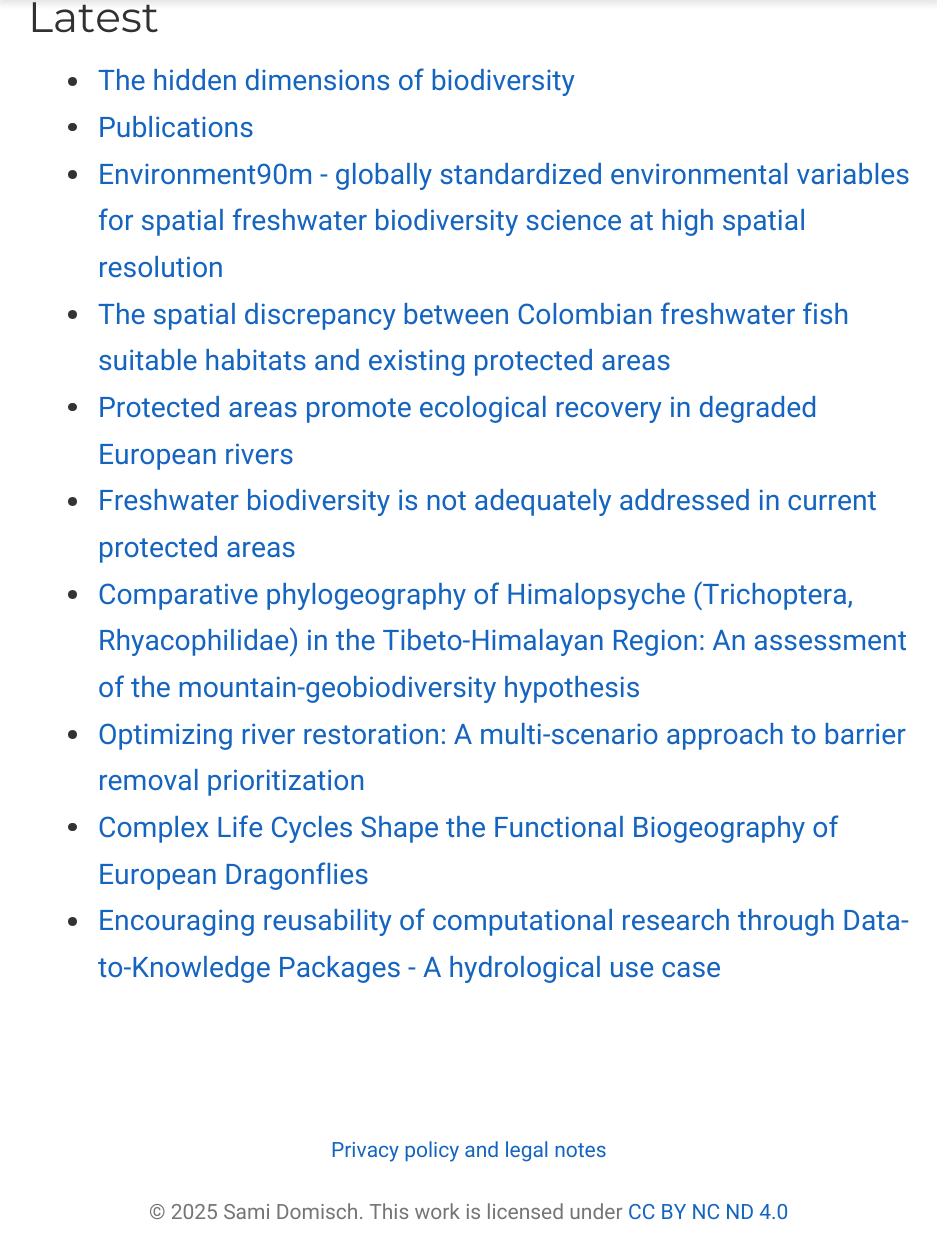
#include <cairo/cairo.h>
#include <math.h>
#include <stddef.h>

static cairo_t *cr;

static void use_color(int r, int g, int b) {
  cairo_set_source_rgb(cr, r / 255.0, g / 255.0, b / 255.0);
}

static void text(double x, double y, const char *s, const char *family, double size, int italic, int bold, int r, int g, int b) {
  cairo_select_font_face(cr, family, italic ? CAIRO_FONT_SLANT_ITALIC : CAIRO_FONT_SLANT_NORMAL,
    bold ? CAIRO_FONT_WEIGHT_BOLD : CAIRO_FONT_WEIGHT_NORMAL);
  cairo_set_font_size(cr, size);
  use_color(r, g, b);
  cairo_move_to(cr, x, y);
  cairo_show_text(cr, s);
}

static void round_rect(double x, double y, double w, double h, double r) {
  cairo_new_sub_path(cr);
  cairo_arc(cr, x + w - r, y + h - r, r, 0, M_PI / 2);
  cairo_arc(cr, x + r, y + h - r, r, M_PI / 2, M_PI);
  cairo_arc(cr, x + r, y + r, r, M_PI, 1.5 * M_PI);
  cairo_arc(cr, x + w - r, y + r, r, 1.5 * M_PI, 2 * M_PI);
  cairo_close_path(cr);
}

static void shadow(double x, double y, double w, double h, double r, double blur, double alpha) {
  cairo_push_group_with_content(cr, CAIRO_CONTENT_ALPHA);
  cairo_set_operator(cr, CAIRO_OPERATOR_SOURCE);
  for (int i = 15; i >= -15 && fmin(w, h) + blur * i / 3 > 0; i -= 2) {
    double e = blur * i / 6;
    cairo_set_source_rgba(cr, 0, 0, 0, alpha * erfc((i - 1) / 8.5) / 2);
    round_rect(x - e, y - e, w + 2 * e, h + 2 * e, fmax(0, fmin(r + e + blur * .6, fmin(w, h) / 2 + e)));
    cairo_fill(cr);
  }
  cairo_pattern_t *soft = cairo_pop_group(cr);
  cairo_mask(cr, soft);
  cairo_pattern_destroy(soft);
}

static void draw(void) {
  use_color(255, 255, 255);
  cairo_paint(cr);
  use_color(0, 0, 0);
  shadow(0, -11, 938, 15, 0, 3.5, 0.11);
  use_color(51, 51, 51);
  cairo_arc(cr, 72.5, 81.5, 4.5, 0, 2 * M_PI);
  cairo_fill(cr);
  round_rect(68, 123, 9, 8, 4);
  cairo_fill(cr);
  cairo_arc(cr, 72.5, 174.5, 4.5, 0, 2 * M_PI);
  cairo_fill(cr);
  cairo_arc(cr, 72.5, 314.5, 4.5, 0, 2 * M_PI);
  cairo_fill(cr);
  round_rect(68, 403, 9, 8, 4);
  cairo_fill(cr);
  cairo_arc(cr, 72.5, 501.5, 4.5, 0, 2 * M_PI);
  cairo_fill(cr);
  cairo_arc(cr, 72.5, 594.5, 4.5, 0, 2 * M_PI);
  cairo_fill(cr);
  cairo_arc(cr, 72.5, 734.5, 4.5, 0, 2 * M_PI);
  cairo_fill(cr);
  round_rect(68, 823, 9, 8, 4);
  cairo_fill(cr);
  cairo_arc(cr, 72.5, 921.5, 4.5, 0, 2 * M_PI);
  cairo_fill(cr);
  text(28, 32, "Latest", "Montserrat", 42.5, 0, 0, 49, 49, 49);
  text(98, 90, "The hidden dimensions of biodiversity", "Roboto", 28.3, 0, 0, 21, 101, 192);
  text(98, 137, "Publications", "Roboto", 28.3, 0, 0, 21, 101, 192);
  text(98, 184, "Environment90m - globally standardized environmental variables", "Roboto", 28.3, 0, 0, 21, 101, 192);
  text(98, 230, "for spatial freshwater biodiversity science at high spatial", "Roboto", 28.3, 0, 0, 21, 101, 192);
  text(98, 277, "resolution", "Roboto", 28.3, 0, 0, 21, 101, 192);
  text(98, 324, "The spatial discrepancy between Colombian freshwater fish", "Roboto", 28.3, 0, 0, 21, 101, 192);
  text(98, 370, "suitable habitats and existing protected areas", "Roboto", 28.3, 0, 0, 21, 101, 192);
  text(98, 417, "Protected areas promote ecological recovery in degraded", "Roboto", 28.3, 0, 0, 21, 101, 192);
  text(98, 464, "European rivers", "Roboto", 28.3, 0, 0, 21, 101, 192);
  text(98, 510, "Freshwater biodiversity is not adequately addressed in current", "Roboto", 28.3, 0, 0, 21, 101, 192);
  text(98, 557, "protected areas", "Roboto", 28.3, 0, 0, 21, 101, 192);
  text(98, 604, "Comparative phylogeography of Himalopsyche (Trichoptera,", "Roboto", 28.3, 0, 0, 21, 101, 192);
  text(98, 650, "Rhyacophilidae) in the Tibeto-Himalayan Region: An assessment", "Roboto", 28.3, 0, 0, 21, 101, 192);
  text(98, 697, "of the mountain-geobiodiversity hypothesis", "Roboto", 28.3, 0, 0, 21, 101, 192);
  text(98, 744, "Optimizing river restoration: A multi-scenario approach to barrier", "Roboto", 28.3, 0, 0, 21, 101, 192);
  text(98, 790, "removal prioritization", "Roboto", 28.3, 0, 0, 21, 101, 192);
  text(98, 837, "Complex Life Cycles Shape the Functional Biogeography of", "Roboto", 28.3, 0, 0, 21, 101, 192);
  text(98, 884, "European Dragonflies", "Roboto", 28.3, 0, 0, 21, 101, 192);
  text(98, 930, "Encouraging reusability of computational research through Data-", "Roboto", 28.3, 0, 0, 21, 101, 192);
  text(98, 977, "to-Knowledge Packages - A hydrological use case", "Roboto", 28.3, 0, 0, 21, 101, 192);
  text(331, 1157, "Privacy policy and legal notes", "Roboto", 21, 0, 0, 21, 101, 192);
  text(149, 1219, "© 2025 Sami Domisch. This work is licensed under", "Roboto", 21, 0, 0, 117, 117, 117);
  text(628, 1219, "CC BY NC ND 4.0", "Roboto", 21, 0, 0, 21, 101, 192);
}

int main(void) {
  cairo_surface_t *surface = cairo_image_surface_create(CAIRO_FORMAT_RGB24, 937, 1233);
  cr = cairo_create(surface);
  cairo_font_options_t *options = cairo_font_options_create();
  cairo_font_options_set_hint_metrics(options, CAIRO_HINT_METRICS_OFF);
  cairo_font_options_set_hint_style(options, CAIRO_HINT_STYLE_NONE);
  cairo_set_font_options(cr, options);
  cairo_set_miter_limit(cr, 4);
  draw();
  cairo_surface_write_to_png(surface, "out.png");
  cairo_font_options_destroy(options);
  cairo_destroy(cr);
  cairo_surface_destroy(surface);
  return 0;
}
